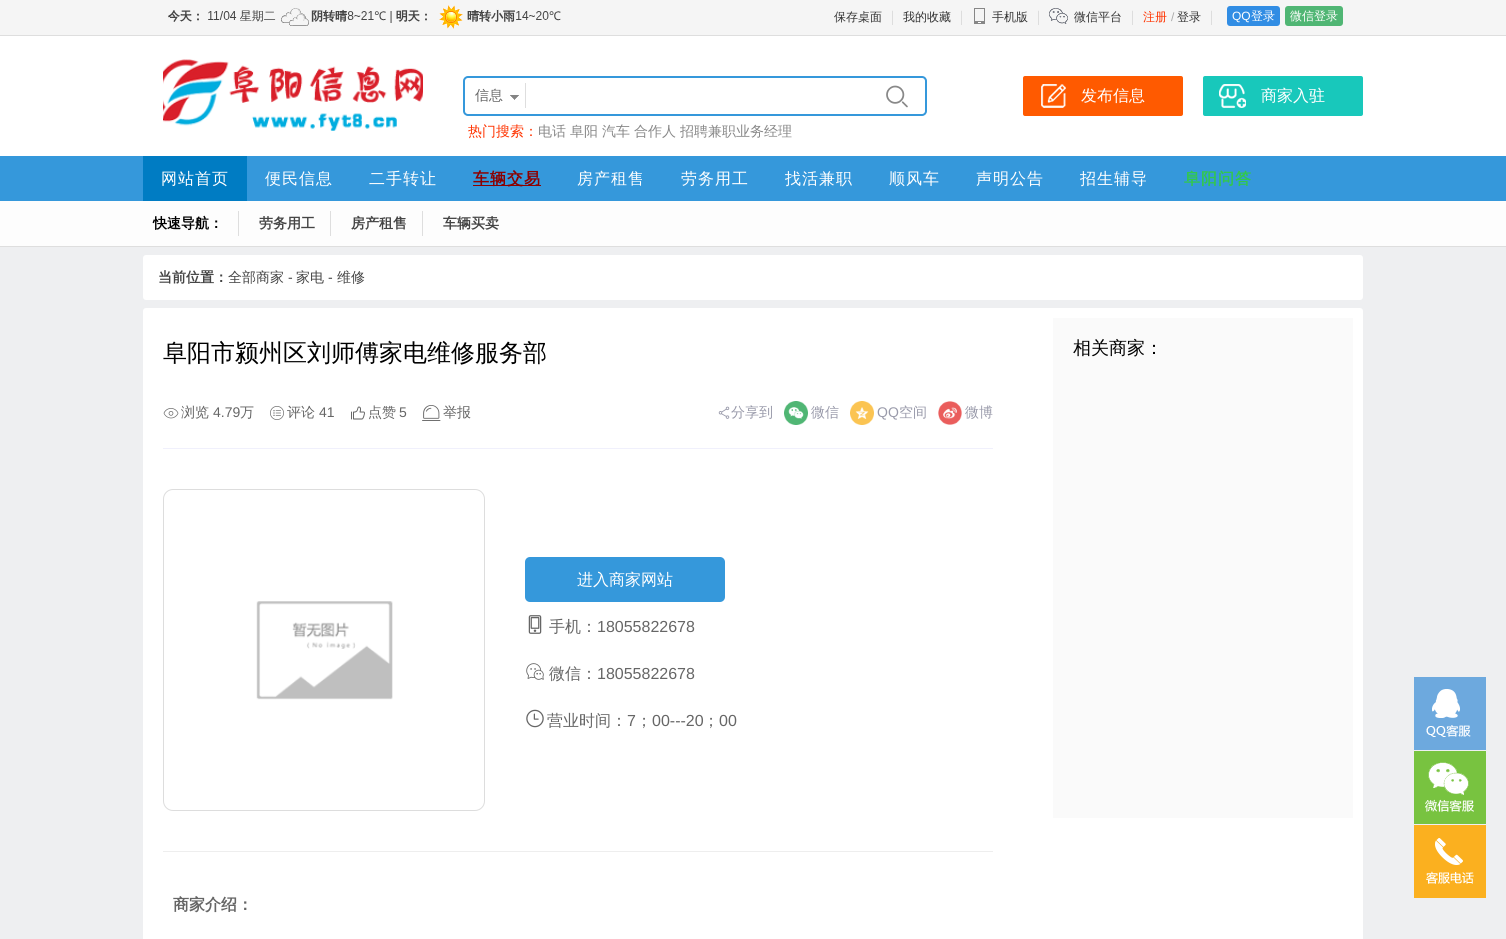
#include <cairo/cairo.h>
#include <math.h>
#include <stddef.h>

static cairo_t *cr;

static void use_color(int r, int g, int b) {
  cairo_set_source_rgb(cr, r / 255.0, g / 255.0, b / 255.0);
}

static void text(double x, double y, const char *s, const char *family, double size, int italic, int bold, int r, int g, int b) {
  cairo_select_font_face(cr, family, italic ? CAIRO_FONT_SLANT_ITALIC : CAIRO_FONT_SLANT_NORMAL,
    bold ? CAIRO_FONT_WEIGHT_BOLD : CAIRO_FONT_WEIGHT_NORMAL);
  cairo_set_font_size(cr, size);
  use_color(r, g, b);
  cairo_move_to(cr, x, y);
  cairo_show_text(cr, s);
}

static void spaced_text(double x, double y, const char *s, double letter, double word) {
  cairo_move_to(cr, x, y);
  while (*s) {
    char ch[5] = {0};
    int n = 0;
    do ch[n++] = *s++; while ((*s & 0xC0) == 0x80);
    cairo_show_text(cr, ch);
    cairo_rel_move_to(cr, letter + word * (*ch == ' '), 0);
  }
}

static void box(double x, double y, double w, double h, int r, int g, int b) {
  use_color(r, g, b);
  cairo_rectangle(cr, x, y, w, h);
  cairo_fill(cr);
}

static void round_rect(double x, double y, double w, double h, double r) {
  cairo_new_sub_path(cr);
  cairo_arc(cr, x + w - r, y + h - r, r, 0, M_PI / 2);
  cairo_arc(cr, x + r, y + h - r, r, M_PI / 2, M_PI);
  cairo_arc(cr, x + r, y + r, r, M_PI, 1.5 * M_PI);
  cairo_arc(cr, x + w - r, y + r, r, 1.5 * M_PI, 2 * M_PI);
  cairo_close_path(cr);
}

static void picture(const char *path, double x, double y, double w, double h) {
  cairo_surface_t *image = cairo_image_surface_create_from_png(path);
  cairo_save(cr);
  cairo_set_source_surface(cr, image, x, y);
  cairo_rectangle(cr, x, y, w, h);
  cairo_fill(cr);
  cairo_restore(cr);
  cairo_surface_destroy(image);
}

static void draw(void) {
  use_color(238, 239, 241);
  cairo_paint(cr);
  box(0, 0, 1506, 35, 245, 245, 245);
  box(0, 35, 1506, 1, 222, 222, 222);
  picture("img_01.png", 168, 5, 393, 24);
  box(892, 10, 1, 15, 221, 221, 221);
  box(892, 10, 1, 1, 239, 239, 239);
  box(961, 10, 1, 15, 221, 221, 221);
  box(961, 10, 1, 1, 239, 239, 239);
  picture("img_02.png", 974, 8, 11, 16);
  box(1038, 10, 1, 15, 221, 221, 221);
  box(1038, 10, 1, 1, 239, 239, 239);
  picture("img_03.png", 1049, 8, 19, 16);
  box(1132, 10, 1, 15, 221, 221, 221);
  box(1132, 10, 1, 1, 239, 239, 239);
  box(1211, 10, 1, 15, 221, 221, 221);
  box(1211, 10, 1, 1, 239, 239, 239);
  use_color(49, 141, 228);
  round_rect(1227, 6, 53, 20, 3);
  cairo_fill(cr);
  use_color(80, 182, 116);
  round_rect(1285, 6, 58, 20, 3);
  cairo_fill(cr);
  box(0, 36, 1506, 120, 255, 255, 255);
  picture("img_04.png", 163, 59, 260, 72);
  round_rect(464, 77, 462, 38, 4);
  use_color(53, 152, 219);
  cairo_stroke(cr);
  picture("img_05.png", 510, 95, 9, 5);
  box(525, 83, 1, 25, 222, 222, 222);
  picture("img_06.png", 886, 85, 22, 23);
  use_color(255, 90, 0);
  round_rect(1023, 76, 160, 40, 2);
  cairo_fill(cr);
  picture("img_07.png", 1041, 84, 25, 24);
  use_color(24, 200, 187);
  round_rect(1203, 76, 160, 40, 2);
  cairo_fill(cr);
  picture("img_08.png", 1219, 84, 27, 24);
  box(0, 156, 1506, 45, 53, 152, 219);
  box(143, 156, 104, 45, 0, 124, 195);
  box(473, 185, 68, 1, 140, 0, 0);
  box(0, 201, 1506, 45, 253, 253, 253);
  box(0, 246, 1506, 1, 222, 222, 222);
  box(238, 211, 1, 25, 222, 222, 222);
  box(330, 211, 1, 25, 222, 222, 222);
  box(422, 211, 1, 25, 222, 222, 222);
  use_color(255, 255, 255);
  round_rect(143, 255, 1220, 45, 3);
  cairo_fill(cr);
  round_rect(143, 308, 1220, 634, 3);
  cairo_fill(cr);
  box(163, 448, 830, 1, 240, 240, 252);
  picture("img_09.png", 163, 408, 16, 11);
  picture("img_10.png", 270, 406, 14, 14);
  picture("img_11.png", 351, 406, 14, 14);
  picture("img_12.png", 422, 405, 19, 16);
  picture("img_13.png", 718, 406, 12, 13);
  picture("img_14.png", 784, 401, 24, 24);
  picture("img_15.png", 850, 401, 24, 24);
  picture("img_16.png", 938, 401, 24, 24);
  box(163, 851, 830, 1, 238, 238, 238);
  round_rect(163.5, 489.5, 321, 321, 9.5);
  use_color(221, 221, 221);
  cairo_set_line_width(cr, 1);
  cairo_stroke(cr);
  picture("img_17.png", 256, 601, 137, 99);
  use_color(53, 152, 219);
  round_rect(525, 557, 200, 45, 5);
  cairo_fill(cr);
  picture("img_18.png", 528, 615, 14, 19);
  picture("img_19.png", 526, 663, 18, 17);
  picture("img_20.png", 526, 709, 18, 19);
  box(1053, 318, 300, 500, 250, 250, 250);
  box(1414, 677, 72, 73, 109, 169, 222);
  picture("img_21.png", 1426, 689, 45, 48);
  box(1414, 751, 72, 73, 120, 195, 64);
  picture("img_22.png", 1425, 762, 49, 50);
  box(1414, 825, 72, 73, 251, 176, 31);
  picture("img_23.png", 1426, 838, 48, 46);
  text(834, 21, "保存桌面", "WenQuanYi Zen Hei Medium", 12, 0, 0, 51, 51, 51);
  text(903, 21, "我的收藏", "WenQuanYi Zen Hei Medium", 12, 0, 0, 51, 51, 51);
  text(992, 21, "手机版", "WenQuanYi Zen Hei Medium", 12, 0, 0, 51, 51, 51);
  text(1074, 21, "微信平台", "WenQuanYi Zen Hei Medium", 12, 0, 0, 51, 51, 51);
  text(1143, 21, "注册", "WenQuanYi Zen Hei Medium", 12, 0, 0, 255, 51, 0);
  text(1171, 21, "/", "Liberation Sans", 12, 0, 0, 170, 170, 170);
  text(1177, 21, "登录", "WenQuanYi Zen Hei Medium", 12, 0, 0, 51, 51, 51);
  text(1232, 20, "QQ", "Liberation Sans", 12, 0, 0, 255, 255, 255);
  text(1251, 20, "登录", "WenQuanYi Zen Hei Medium", 12, 0, 0, 255, 255, 255);
  text(1290, 20, "微信登录", "WenQuanYi Zen Hei Medium", 12, 0, 0, 255, 255, 255);
  text(475, 100, "信息", "WenQuanYi Zen Hei Medium", 14, 0, 0, 102, 102, 102);
  text(468, 136, "热门搜索：", "WenQuanYi Zen Hei Medium", 14, 0, 0, 255, 51, 0);
  text(538, 136, "电话", "WenQuanYi Zen Hei Medium", 14, 0, 0, 136, 136, 136);
  text(570, 136, "阜阳", "WenQuanYi Zen Hei Medium", 14, 0, 0, 136, 136, 136);
  text(602, 136, "汽车", "WenQuanYi Zen Hei Medium", 14, 0, 0, 136, 136, 136);
  text(634, 136, "合作人", "WenQuanYi Zen Hei Medium", 14, 0, 0, 136, 136, 136);
  text(680, 136, "招聘兼职业务经理", "WenQuanYi Zen Hei Medium", 14, 0, 0, 136, 136, 136);
  text(1081, 101, "发布信息", "WenQuanYi Zen Hei Medium", 16, 0, 0, 255, 255, 255);
  text(1261, 101, "商家入驻", "WenQuanYi Zen Hei Medium", 16, 0, 0, 255, 255, 255);
  spaced_text(161, 184, "网站首页", 1, 0);
  spaced_text(265, 184, "便民信息", 1, 0);
  spaced_text(369, 184, "二手转让", 1, 0);
  cairo_select_font_face(cr, "WenQuanYi Zen Hei", CAIRO_FONT_SLANT_NORMAL, CAIRO_FONT_WEIGHT_BOLD);
  use_color(140, 0, 0);
  spaced_text(473, 184, "车辆交易", 1, 0);
  cairo_select_font_face(cr, "WenQuanYi Zen Hei Medium", CAIRO_FONT_SLANT_NORMAL, CAIRO_FONT_WEIGHT_NORMAL);
  use_color(255, 255, 255);
  spaced_text(577, 184, "房产租售", 1, 0);
  spaced_text(681, 184, "劳务用工", 1, 0);
  spaced_text(785, 184, "找活兼职", 1, 0);
  spaced_text(889, 184, "顺风车", 1, 0);
  spaced_text(976, 184, "声明公告", 1, 0);
  spaced_text(1080, 184, "招生辅导", 1, 0);
  cairo_select_font_face(cr, "WenQuanYi Zen Hei", CAIRO_FONT_SLANT_NORMAL, CAIRO_FONT_WEIGHT_BOLD);
  use_color(50, 199, 77);
  spaced_text(1184, 184, "阜阳问答", 1, 0);
  text(153, 228, "快速导航：", "WenQuanYi Zen Hei", 14, 0, 1, 0, 0, 0);
  text(259, 228, "劳务用工", "WenQuanYi Zen Hei", 14, 0, 1, 68, 68, 68);
  text(351, 228, "房产租售", "WenQuanYi Zen Hei", 14, 0, 1, 68, 68, 68);
  text(443, 228, "车辆买卖", "WenQuanYi Zen Hei", 14, 0, 1, 68, 68, 68);
  text(158, 282, "当前位置：", "WenQuanYi Zen Hei", 14, 0, 1, 68, 68, 68);
  text(228, 282, "全部商家", "WenQuanYi Zen Hei Medium", 14, 0, 0, 68, 68, 68);
  text(288, 282, "-", "Liberation Sans", 14, 0, 0, 68, 68, 68);
  text(296, 282, "家电", "WenQuanYi Zen Hei Medium", 14, 0, 0, 68, 68, 68);
  text(328, 282, "-", "Liberation Sans", 14, 0, 0, 68, 68, 68);
  text(337, 282, "维修", "WenQuanYi Zen Hei Medium", 14, 0, 0, 68, 68, 68);
  text(163, 361, "阜阳市颍州区刘师傅家电维修服务部", "WenQuanYi Zen Hei Medium", 24, 0, 0, 0, 0, 0);
  text(181, 417, "浏览", "WenQuanYi Zen Hei Medium", 14, 0, 0, 102, 102, 102);
  text(213, 417, "4.79", "Liberation Sans", 14, 0, 0, 102, 102, 102);
  text(240, 417, "万", "WenQuanYi Zen Hei Medium", 14, 0, 0, 102, 102, 102);
  text(287, 417, "评论", "WenQuanYi Zen Hei Medium", 14, 0, 0, 102, 102, 102);
  text(319, 417, "41", "Liberation Sans", 14, 0, 0, 102, 102, 102);
  text(368, 417, "点赞", "WenQuanYi Zen Hei Medium", 14, 0, 0, 102, 102, 102);
  text(399, 417, "5", "Liberation Sans", 14, 0, 0, 102, 102, 102);
  text(443, 417, "举报", "WenQuanYi Zen Hei Medium", 14, 0, 0, 102, 102, 102);
  text(731, 417, "分享到", "WenQuanYi Zen Hei Medium", 14, 0, 0, 153, 154, 170);
  text(811, 417, "微信", "WenQuanYi Zen Hei Medium", 14, 0, 0, 153, 154, 170);
  text(877, 417, "QQ", "Liberation Sans", 14, 0, 0, 153, 154, 170);
  text(899, 417, "空间", "WenQuanYi Zen Hei Medium", 14, 0, 0, 153, 154, 170);
  text(965, 417, "微博", "WenQuanYi Zen Hei Medium", 14, 0, 0, 153, 154, 170);
  text(577, 585, "进入商家网站", "WenQuanYi Zen Hei Medium", 16, 0, 0, 255, 255, 255);
  text(549, 632, "手机：", "WenQuanYi Zen Hei Medium", 16, 0, 0, 102, 102, 102);
  text(597, 632, "18055822678", "Liberation Sans", 16, 0, 0, 102, 102, 102);
  text(549, 679, "微信：", "WenQuanYi Zen Hei Medium", 16, 0, 0, 102, 102, 102);
  text(597, 679, "18055822678", "Liberation Sans", 16, 0, 0, 102, 102, 102);
  text(547, 726, "营业时间：", "WenQuanYi Zen Hei Medium", 16, 0, 0, 102, 102, 102);
  text(627, 726, "7", "Liberation Sans", 16, 0, 0, 102, 102, 102);
  text(636, 726, "；", "WenQuanYi Zen Hei Medium", 16, 0, 0, 102, 102, 102);
  text(652, 726, "00---20", "Liberation Sans", 16, 0, 0, 102, 102, 102);
  text(703, 726, "；", "WenQuanYi Zen Hei Medium", 16, 0, 0, 102, 102, 102);
  text(719, 726, "00", "Liberation Sans", 16, 0, 0, 102, 102, 102);
  text(173, 910, "商家介绍：", "WenQuanYi Zen Hei", 16, 0, 1, 102, 102, 102);
  text(1073, 354, "相关商家：", "WenQuanYi Zen Hei Medium", 18, 0, 0, 0, 0, 0);
}

int main(void) {
  cairo_surface_t *surface = cairo_image_surface_create(CAIRO_FORMAT_RGB24, 1506, 939);
  cr = cairo_create(surface);
  cairo_font_options_t *options = cairo_font_options_create();
  cairo_font_options_set_hint_metrics(options, CAIRO_HINT_METRICS_OFF);
  cairo_font_options_set_hint_style(options, CAIRO_HINT_STYLE_NONE);
  cairo_set_font_options(cr, options);
  cairo_set_miter_limit(cr, 4);
  draw();
  cairo_surface_write_to_png(surface, "out.png");
  cairo_font_options_destroy(options);
  cairo_destroy(cr);
  cairo_surface_destroy(surface);
  return 0;
}
